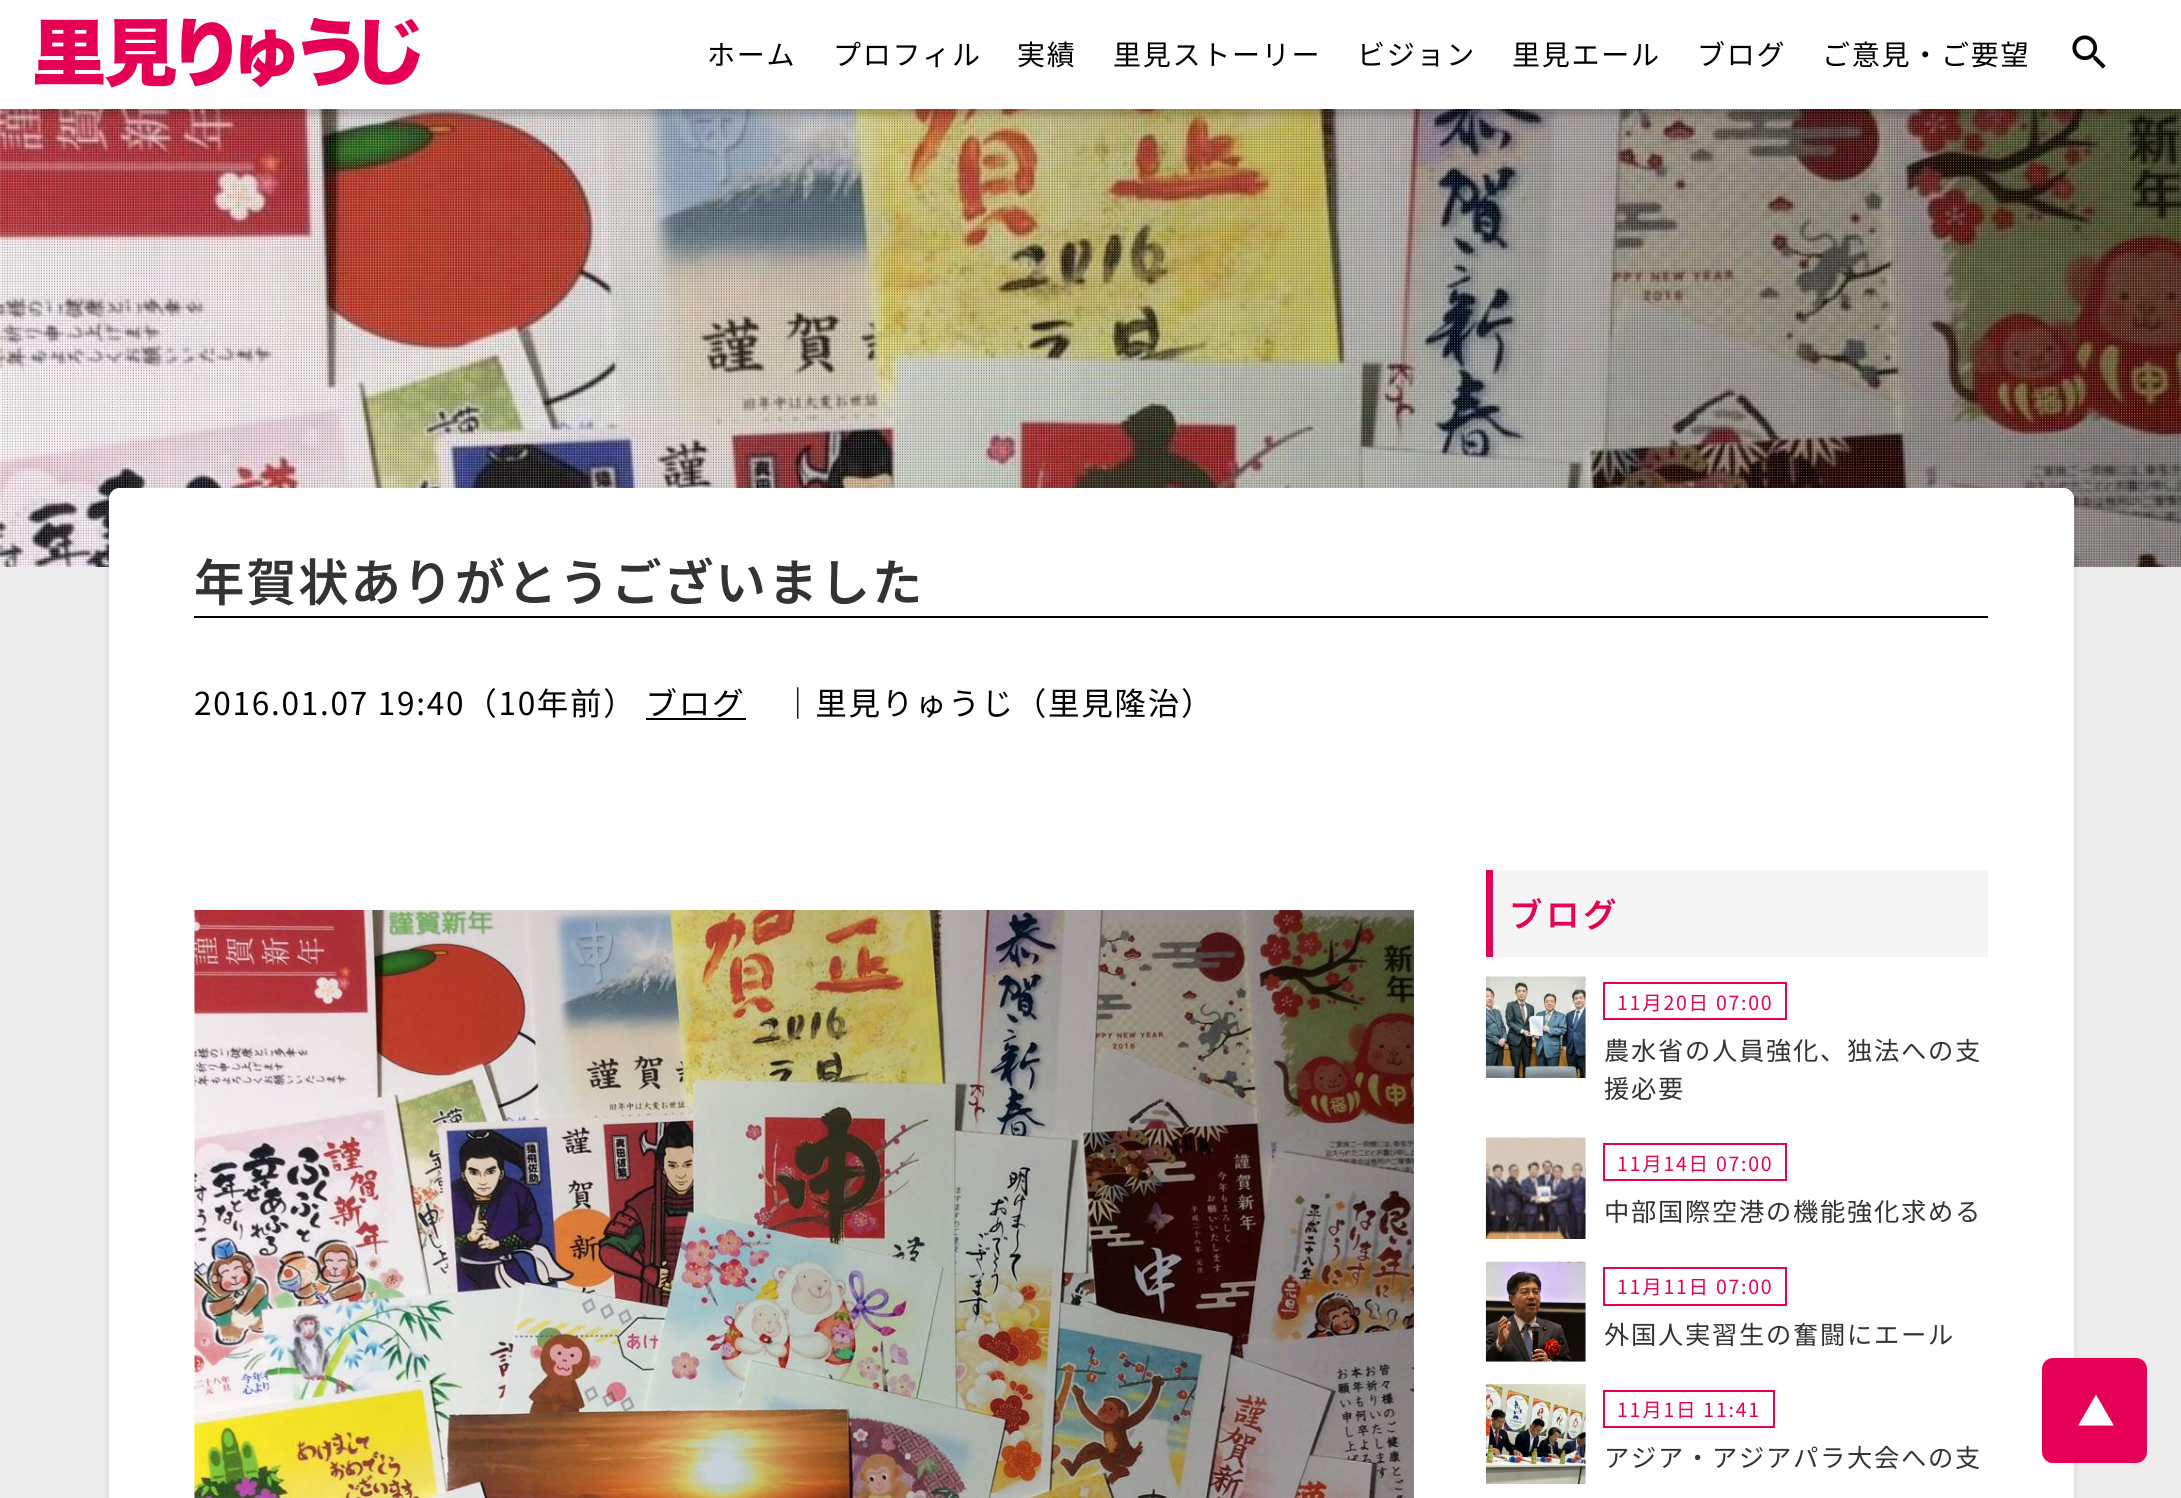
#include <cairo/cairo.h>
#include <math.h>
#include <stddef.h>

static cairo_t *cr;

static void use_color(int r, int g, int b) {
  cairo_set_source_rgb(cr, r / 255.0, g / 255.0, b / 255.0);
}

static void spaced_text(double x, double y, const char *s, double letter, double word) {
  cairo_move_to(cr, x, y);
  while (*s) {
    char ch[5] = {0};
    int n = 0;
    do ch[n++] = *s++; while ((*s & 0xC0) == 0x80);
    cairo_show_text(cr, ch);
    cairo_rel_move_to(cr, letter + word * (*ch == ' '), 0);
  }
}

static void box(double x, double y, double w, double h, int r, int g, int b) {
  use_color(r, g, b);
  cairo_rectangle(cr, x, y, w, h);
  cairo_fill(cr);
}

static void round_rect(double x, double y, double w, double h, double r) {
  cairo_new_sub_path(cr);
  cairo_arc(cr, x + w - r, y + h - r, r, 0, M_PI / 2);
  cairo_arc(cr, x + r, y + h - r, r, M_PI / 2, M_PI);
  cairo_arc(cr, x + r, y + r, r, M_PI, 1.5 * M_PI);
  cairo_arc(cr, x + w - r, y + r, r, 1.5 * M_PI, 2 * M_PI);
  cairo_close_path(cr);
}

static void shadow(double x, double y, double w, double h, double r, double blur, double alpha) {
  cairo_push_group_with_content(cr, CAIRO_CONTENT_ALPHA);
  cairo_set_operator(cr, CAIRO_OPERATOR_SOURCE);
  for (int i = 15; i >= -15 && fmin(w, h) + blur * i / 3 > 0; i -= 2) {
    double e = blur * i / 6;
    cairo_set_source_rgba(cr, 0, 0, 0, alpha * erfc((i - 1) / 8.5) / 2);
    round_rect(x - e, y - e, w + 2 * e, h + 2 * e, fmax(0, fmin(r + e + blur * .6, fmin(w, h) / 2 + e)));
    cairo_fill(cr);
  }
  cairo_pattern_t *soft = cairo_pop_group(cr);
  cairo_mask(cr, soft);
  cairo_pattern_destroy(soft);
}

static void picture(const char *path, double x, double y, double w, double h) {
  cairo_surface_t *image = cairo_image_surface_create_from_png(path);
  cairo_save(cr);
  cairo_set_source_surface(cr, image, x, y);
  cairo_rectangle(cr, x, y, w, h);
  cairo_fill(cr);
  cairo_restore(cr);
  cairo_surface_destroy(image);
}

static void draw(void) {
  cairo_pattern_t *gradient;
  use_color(236, 236, 236);
  cairo_paint(cr);
  picture("img_03.png", 0, 109, 2181, 458);
  use_color(0, 0, 0);
  shadow(0, 7, 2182, 109, 0, 3.5, 0.2);
  box(0, 0, 2181, 109, 255, 255, 255);
  picture("img_01.png", 35, 18, 385, 70);
  picture("img_02.png", 2072, 35, 34, 34);
  use_color(0, 0, 0);
  shadow(109, 490, 1965, 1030, 11, 3.5, 0.1);
  use_color(255, 255, 255);
  round_rect(109, 488, 1965, 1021, 11);
  cairo_fill(cr);
  gradient = cairo_pattern_create_linear(1091, 0, 1091, 1498);
  cairo_pattern_add_color_stop_rgba(gradient, 0, 1, 1, 1, 1);
  cairo_pattern_add_color_stop_rgba(gradient, 1, 1, 1, 1, 0.6);
  cairo_set_source(cr, gradient);
  cairo_pattern_destroy(gradient);
  cairo_new_path(cr);
  cairo_move_to(cr, 120, 488);
  cairo_line_to(cr, 2063, 488);
  cairo_curve_to(cr, 2069, 488, 2074, 493, 2074, 499);
  cairo_line_to(cr, 2074, 1498);
  cairo_line_to(cr, 109, 1498);
  cairo_line_to(cr, 109, 499);
  cairo_curve_to(cr, 109, 493, 114, 488, 120, 488);
  cairo_close_path(cr);
  cairo_fill(cr);
  box(194, 616, 1794, 2, 0, 0, 0);
  box(646, 718, 100, 2, 0, 0, 0);
  picture("img_04.png", 194, 910, 1220, 588);
  box(1493, 870, 495, 87, 245, 245, 245);
  box(1486, 870, 7, 87, 229, 1, 86);
  box(1585, 977, 1, 101, 239, 239, 239);
  picture("img_05.png", 1485, 976, 101, 102);
  cairo_rectangle(cr, 1604, 983, 182, 36);
  use_color(229, 1, 86);
  cairo_stroke(cr);
  box(1585, 1138, 1, 101, 239, 239, 239);
  picture("img_06.png", 1485, 1137, 101, 102);
  cairo_rectangle(cr, 1604, 1144, 182, 36);
  use_color(229, 1, 86);
  cairo_stroke(cr);
  box(1486, 1262, 100, 100, 239, 239, 239);
  picture("img_07.png", 1485, 1261, 101, 101);
  cairo_rectangle(cr, 1604, 1268, 182, 37);
  use_color(229, 1, 86);
  cairo_stroke(cr);
  box(1486, 1384, 100, 100, 239, 239, 239);
  picture("img_08.png", 1485, 1384, 101, 100);
  cairo_rectangle(cr, 1604, 1391, 170, 36);
  use_color(229, 1, 86);
  cairo_stroke(cr);
  round_rect(2042, 1358, 105, 105, 11);
  cairo_fill(cr);
  cairo_select_font_face(cr, "Noto Sans JP", CAIRO_FONT_SLANT_NORMAL, CAIRO_FONT_WEIGHT_NORMAL);
  cairo_set_font_size(cr, 28);
  use_color(0, 0, 0);
  spaced_text(707, 65, "ホーム", 1.75, 0);
  spaced_text(833, 65, "プロフィル", 1.75, 0);
  spaced_text(1017, 65, "実績", 1.75, 0);
  spaced_text(1113, 65, "里見ストーリー", 1.75, 0);
  spaced_text(1357, 65, "ビジョン", 1.75, 0);
  spaced_text(1512, 65, "里見エール", 1.75, 0);
  spaced_text(1697, 65, "ブログ", 1.75, 0);
  spaced_text(1822, 65, "ご意見・ご要望", 1.75, 0);
  cairo_select_font_face(cr, "Noto Sans JP SemiBold", CAIRO_FONT_SLANT_NORMAL, CAIRO_FONT_WEIGHT_NORMAL);
  cairo_set_font_size(cr, 50.4);
  use_color(51, 51, 51);
  spaced_text(194, 601, "年賀状ありがとうございました", 1.75, 0);
  cairo_select_font_face(cr, "Noto Sans JP", CAIRO_FONT_SLANT_NORMAL, CAIRO_FONT_WEIGHT_NORMAL);
  cairo_set_font_size(cr, 31.5);
  use_color(0, 0, 0);
  spaced_text(194, 715, "2016.01.07 19:40（10年前） ブログ", 1.75, 0);
  spaced_text(782, 715, "｜里見りゅうじ（里見隆治）", 1.75, 0);
  cairo_select_font_face(cr, "Noto Sans JP SemiBold", CAIRO_FONT_SLANT_NORMAL, CAIRO_FONT_WEIGHT_NORMAL);
  cairo_set_font_size(cr, 33.5);
  use_color(229, 1, 86);
  spaced_text(1509, 927, "ブログ", 3.5, 0);
  cairo_select_font_face(cr, "Noto Sans JP", CAIRO_FONT_SLANT_NORMAL, CAIRO_FONT_WEIGHT_NORMAL);
  cairo_set_font_size(cr, 19.5);
  spaced_text(1617, 1010, "11月20日 07:00", 1.75, 0);
  cairo_set_font_size(cr, 25.25);
  use_color(51, 51, 51);
  spaced_text(1604, 1060, "農水省の人員強化、独法への支", 1.75, 0);
  spaced_text(1604, 1098, "援必要", 1.75, 0);
  cairo_set_font_size(cr, 19.5);
  use_color(229, 1, 86);
  spaced_text(1617, 1171, "11月14日 07:00", 1.75, 0);
  cairo_set_font_size(cr, 25.25);
  use_color(51, 51, 51);
  spaced_text(1604, 1221, "中部国際空港の機能強化求める", 1.75, 0);
  cairo_set_font_size(cr, 19.5);
  use_color(229, 1, 86);
  spaced_text(1617, 1294, "11月11日 07:00", 1.75, 0);
  cairo_set_font_size(cr, 25.25);
  use_color(51, 51, 51);
  spaced_text(1604, 1344, "外国人実習生の奮闘にエール", 1.75, 0);
  cairo_set_font_size(cr, 19.5);
  use_color(229, 1, 86);
  spaced_text(1617, 1417, "11月1日 11:41", 1.75, 0);
  cairo_set_font_size(cr, 25.25);
  use_color(51, 51, 51);
  spaced_text(1604, 1467, "アジア・アジアパラ大会への支", 1.75, 0);
  cairo_set_font_size(cr, 38);
  use_color(255, 255, 255);
  spaced_text(2077, 1426, "▲", 1.75, 0);
}

int main(void) {
  cairo_surface_t *surface = cairo_image_surface_create(CAIRO_FORMAT_RGB24, 2181, 1498);
  cr = cairo_create(surface);
  cairo_font_options_t *options = cairo_font_options_create();
  cairo_font_options_set_hint_metrics(options, CAIRO_HINT_METRICS_OFF);
  cairo_font_options_set_hint_style(options, CAIRO_HINT_STYLE_NONE);
  cairo_set_font_options(cr, options);
  cairo_set_miter_limit(cr, 4);
  draw();
  cairo_surface_write_to_png(surface, "out.png");
  cairo_font_options_destroy(options);
  cairo_destroy(cr);
  cairo_surface_destroy(surface);
  return 0;
}
